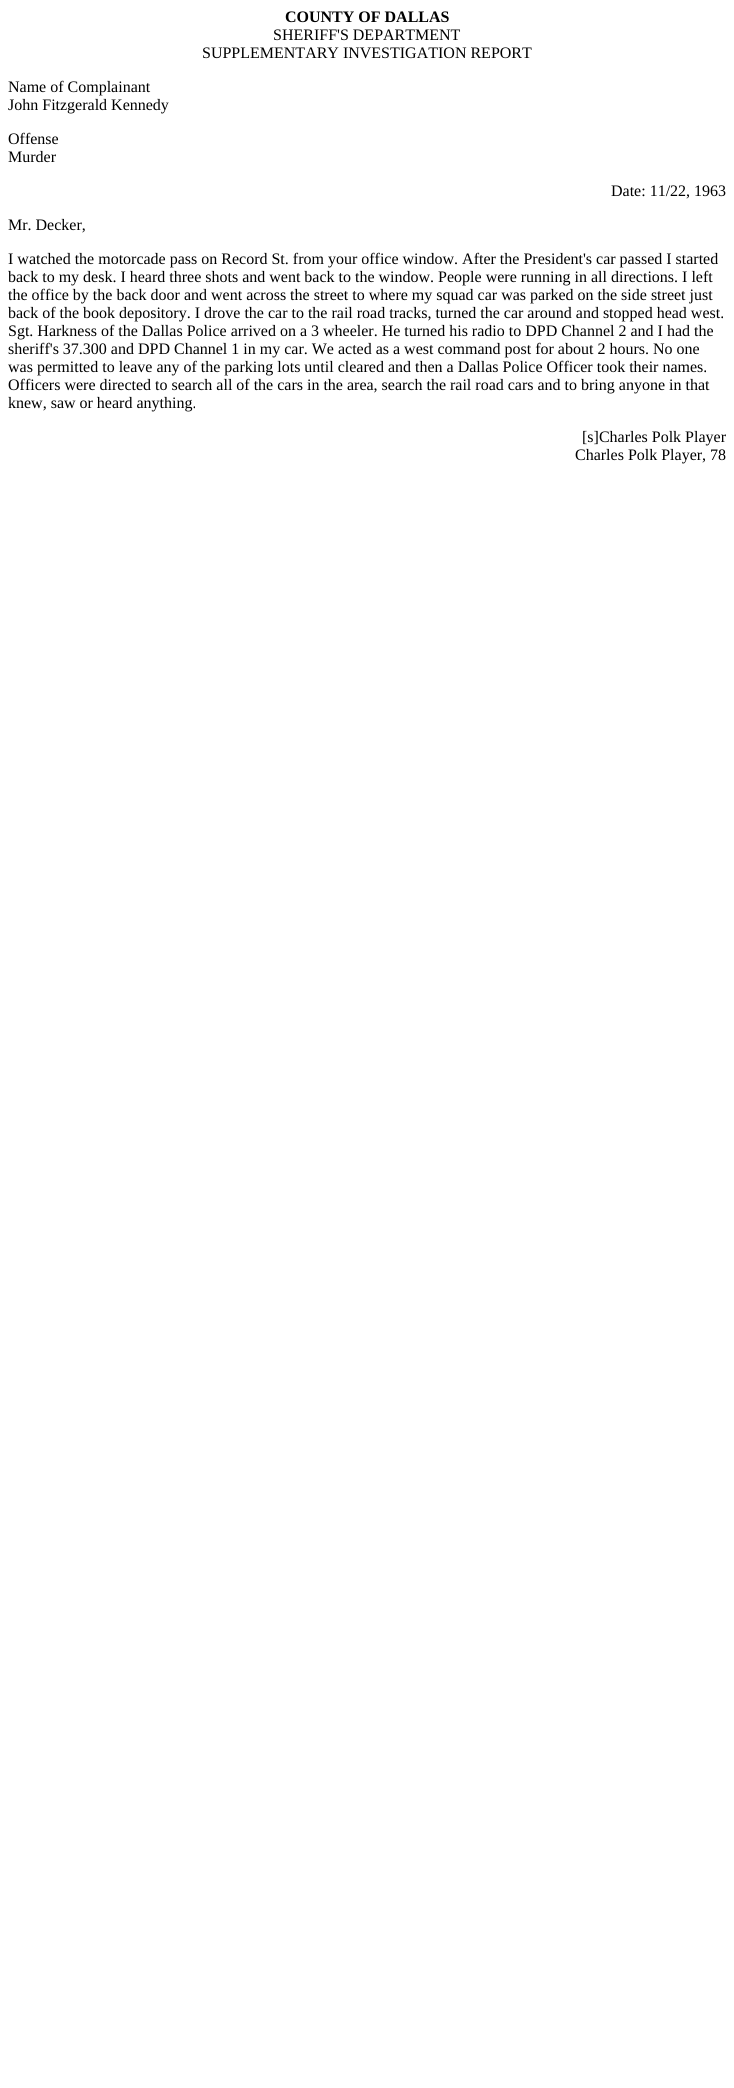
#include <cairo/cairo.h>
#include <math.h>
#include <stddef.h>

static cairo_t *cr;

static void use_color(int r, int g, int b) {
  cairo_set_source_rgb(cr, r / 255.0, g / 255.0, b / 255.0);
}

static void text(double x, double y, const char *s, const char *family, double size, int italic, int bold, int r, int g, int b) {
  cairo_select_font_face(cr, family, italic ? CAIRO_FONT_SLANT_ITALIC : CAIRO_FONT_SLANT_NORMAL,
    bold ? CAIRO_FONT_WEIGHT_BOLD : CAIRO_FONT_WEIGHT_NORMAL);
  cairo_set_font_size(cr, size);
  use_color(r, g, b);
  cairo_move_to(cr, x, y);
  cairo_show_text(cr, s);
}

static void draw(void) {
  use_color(255, 255, 255);
  cairo_paint(cr);
  text(285, 22, "COUNTY OF DALLAS", "Liberation Serif", 16, 0, 1, 0, 0, 0);
  text(273, 40, "SHERIFF'S DEPARTMENT", "Liberation Serif", 16, 0, 0, 0, 0, 0);
  text(202, 58, "SUPPLEMENTARY INVESTIGATION REPORT", "Liberation Serif", 16, 0, 0, 0, 0, 0);
  text(8, 92, "Name of Complainant", "Liberation Serif", 16, 0, 0, 0, 0, 0);
  text(8, 110, "John Fitzgerald Kennedy", "Liberation Serif", 16, 0, 0, 0, 0, 0);
  text(8, 144, "Offense", "Liberation Serif", 16, 0, 0, 0, 0, 0);
  text(8, 162, "Murder", "Liberation Serif", 16, 0, 0, 0, 0, 0);
  text(611, 196, "Date: 11/22, 1963", "Liberation Serif", 16, 0, 0, 0, 0, 0);
  text(8, 230, "Mr. Decker,", "Liberation Serif", 16, 0, 0, 0, 0, 0);
  text(8, 264, "I watched the motorcade pass on Record St. from your office window. After the President's car passed I started", "Liberation Serif", 16, 0, 0, 0, 0, 0);
  text(8, 282, "back to my desk. I heard three shots and went back to the window. People were running in all directions. I left", "Liberation Serif", 16, 0, 0, 0, 0, 0);
  text(8, 300, "the office by the back door and went across the street to where my squad car was parked on the side street just", "Liberation Serif", 16, 0, 0, 0, 0, 0);
  text(8, 318, "back of the book depository. I drove the car to the rail road tracks, turned the car around and stopped head west.", "Liberation Serif", 16, 0, 0, 0, 0, 0);
  text(8, 336, "Sgt. Harkness of the Dallas Police arrived on a 3 wheeler. He turned his radio to DPD Channel 2 and I had the", "Liberation Serif", 16, 0, 0, 0, 0, 0);
  text(8, 354, "sheriff's 37.300 and DPD Channel 1 in my car. We acted as a west command post for about 2 hours. No one", "Liberation Serif", 16, 0, 0, 0, 0, 0);
  text(8, 372, "was permitted to leave any of the parking lots until cleared and then a Dallas Police Officer took their names.", "Liberation Serif", 16, 0, 0, 0, 0, 0);
  text(8, 390, "Officers were directed to search all of the cars in the area, search the rail road cars and to bring anyone in that", "Liberation Serif", 16, 0, 0, 0, 0, 0);
  text(8, 408, "knew, saw or heard anything.", "Liberation Serif", 16, 0, 0, 0, 0, 0);
  text(582, 442, "[s]Charles Polk Player", "Liberation Serif", 16, 0, 0, 0, 0, 0);
  text(575, 460, "Charles Polk Player, 78", "Liberation Serif", 16, 0, 0, 0, 0, 0);
}

int main(void) {
  cairo_surface_t *surface = cairo_image_surface_create(CAIRO_FORMAT_RGB24, 734, 2088);
  cr = cairo_create(surface);
  cairo_font_options_t *options = cairo_font_options_create();
  cairo_font_options_set_hint_metrics(options, CAIRO_HINT_METRICS_OFF);
  cairo_font_options_set_hint_style(options, CAIRO_HINT_STYLE_NONE);
  cairo_set_font_options(cr, options);
  cairo_set_miter_limit(cr, 4);
  draw();
  cairo_surface_write_to_png(surface, "out.png");
  cairo_font_options_destroy(options);
  cairo_destroy(cr);
  cairo_surface_destroy(surface);
  return 0;
}
